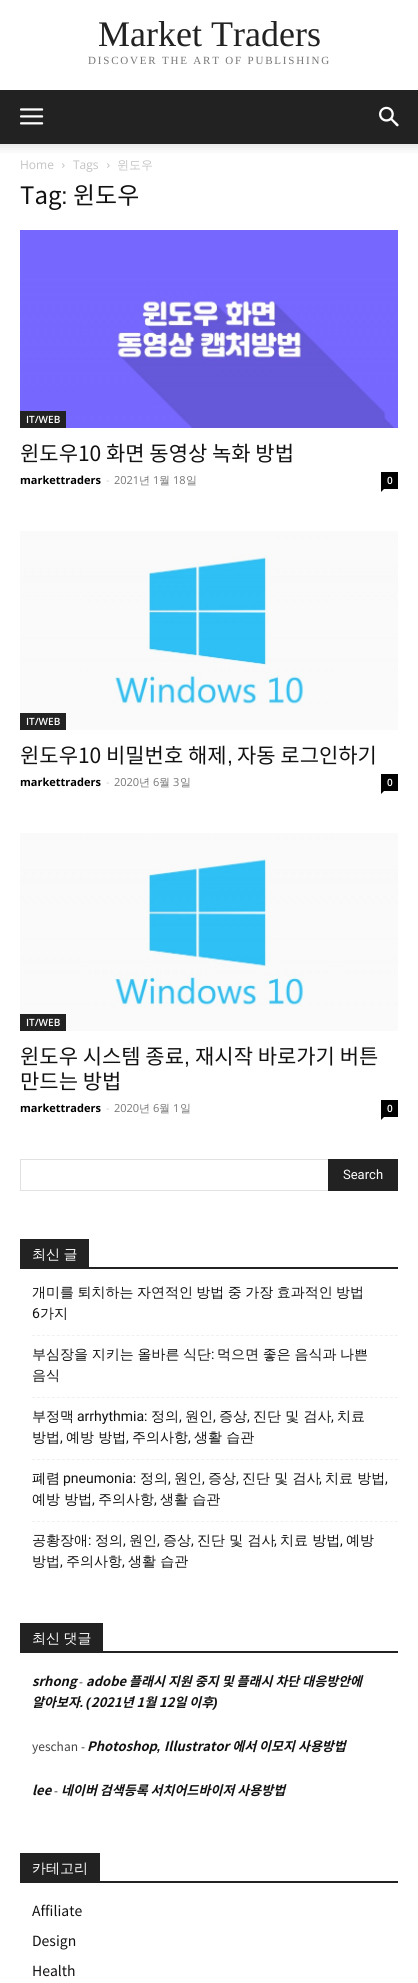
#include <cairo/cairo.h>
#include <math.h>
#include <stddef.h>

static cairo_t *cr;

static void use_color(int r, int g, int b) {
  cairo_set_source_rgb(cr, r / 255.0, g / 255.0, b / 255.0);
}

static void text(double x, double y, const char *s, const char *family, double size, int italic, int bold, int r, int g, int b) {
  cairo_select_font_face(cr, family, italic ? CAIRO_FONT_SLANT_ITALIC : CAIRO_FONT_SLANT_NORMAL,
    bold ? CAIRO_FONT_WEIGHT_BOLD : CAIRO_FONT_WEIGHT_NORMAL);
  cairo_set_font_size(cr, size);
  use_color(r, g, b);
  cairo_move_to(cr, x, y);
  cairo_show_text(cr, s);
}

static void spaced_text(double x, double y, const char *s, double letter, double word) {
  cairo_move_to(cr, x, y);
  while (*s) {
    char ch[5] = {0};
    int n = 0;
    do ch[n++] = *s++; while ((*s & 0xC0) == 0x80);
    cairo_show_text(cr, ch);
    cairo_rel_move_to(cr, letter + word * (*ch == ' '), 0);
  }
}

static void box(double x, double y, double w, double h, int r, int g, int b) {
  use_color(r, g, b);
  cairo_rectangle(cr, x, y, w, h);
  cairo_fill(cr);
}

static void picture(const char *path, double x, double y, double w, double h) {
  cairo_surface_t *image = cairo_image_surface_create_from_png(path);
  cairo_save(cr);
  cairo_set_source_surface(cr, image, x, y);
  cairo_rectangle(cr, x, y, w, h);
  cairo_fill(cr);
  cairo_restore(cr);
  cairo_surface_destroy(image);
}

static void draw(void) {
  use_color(255, 255, 255);
  cairo_paint(cr);
  box(0, 90, 418, 54, 34, 34, 34);
  picture("img_01.png", 20, 108, 24, 17);
  picture("img_02.png", 379, 106, 20, 21);
  picture("img_03.png", 0, 144, 418, 9);
  picture("img_04.png", 62, 163, 3, 5);
  picture("img_04.png", 107, 163, 3, 5);
  picture("img_05.png", 20, 230, 378, 198);
  box(20, 411, 46, 17, 34, 34, 34);
  box(381, 472, 17, 17, 0, 0, 0);
  cairo_new_path(cr);
  cairo_move_to(cr, 381, 489);
  cairo_line_to(cr, 384, 489);
  cairo_line_to(cr, 381, 492);
  cairo_close_path(cr);
  cairo_fill(cr);
  picture("img_06.png", 20, 531, 378, 199);
  box(20, 713, 46, 17, 34, 34, 34);
  box(381, 774, 17, 17, 0, 0, 0);
  cairo_new_path(cr);
  cairo_move_to(cr, 381, 791);
  cairo_line_to(cr, 384, 791);
  cairo_line_to(cr, 381, 794);
  cairo_close_path(cr);
  cairo_fill(cr);
  picture("img_07.png", 20, 833, 378, 198);
  box(20, 1014, 46, 17, 34, 34, 34);
  box(381, 1100, 17, 17, 0, 0, 0);
  cairo_new_path(cr);
  cairo_move_to(cr, 381, 1117);
  cairo_line_to(cr, 384, 1117);
  cairo_line_to(cr, 381, 1120);
  cairo_close_path(cr);
  cairo_fill(cr);
  box(20, 1159, 308, 1, 225, 225, 225);
  box(20, 1190, 308, 1, 225, 225, 225);
  box(20, 1159, 1, 32, 225, 225, 225);
  box(328, 1159, 70, 32, 34, 34, 34);
  box(20, 1267, 378, 2, 34, 34, 34);
  box(20, 1239, 69, 28, 34, 34, 34);
  cairo_new_path(cr);
  cairo_move_to(cr, 32, 1335.5);
  cairo_line_to(cr, 398, 1335.5);
  use_color(241, 241, 241);
  cairo_set_line_width(cr, 1);
  cairo_set_dash(cr, (double[]){3, 1.97}, 2, 0);
  cairo_stroke(cr);
  cairo_new_path(cr);
  cairo_move_to(cr, 32, 1397.5);
  cairo_line_to(cr, 398, 1397.5);
  cairo_stroke(cr);
  cairo_new_path(cr);
  cairo_move_to(cr, 32, 1459.5);
  cairo_line_to(cr, 398, 1459.5);
  cairo_stroke(cr);
  cairo_new_path(cr);
  cairo_move_to(cr, 32, 1521.5);
  cairo_line_to(cr, 398, 1521.5);
  cairo_stroke(cr);
  box(20, 1651, 378, 2, 34, 34, 34);
  box(20, 1623, 83, 28, 34, 34, 34);
  box(20, 1881, 378, 2, 34, 34, 34);
  box(20, 1853, 80, 28, 34, 34, 34);
  text(98, 46, "Market Traders", "Liberation Serif", 36, 0, 0, 34, 34, 34);
  cairo_set_font_size(cr, 11);
  use_color(118, 118, 118);
  spaced_text(88, 64, "DISCOVER THE ART OF PUBLISHING", 1.8, 0);
  text(20, 169, "Home", "Open Sans", 12, 0, 0, 195, 195, 195);
  text(73, 169, "Tags", "Open Sans", 12, 0, 0, 195, 195, 195);
  text(117, 169, "윈도우", "WenQuanYi Zen Hei Medium", 12, 0, 0, 195, 195, 195);
  text(20, 204, "Tag", "Noto Sans CJK KR", 24, 0, 0, 17, 17, 17);
  text(61, 204, ":", "Liberation Sans", 24, 0, 0, 17, 17, 17);
  text(73, 204, "윈도우", "Noto Sans CJK KR", 24, 0, 0, 17, 17, 17);
  text(26, 423, "IT/WEB", "Open Sans SemiBold", 10, 0, 0, 255, 255, 255);
  text(20, 461, "윈도우10 화면 동영상 녹화 방법", "Noto Sans CJK KR", 21, 0, 0, 17, 17, 17);
  text(20, 484, "markettraders", "Open Sans", 11, 0, 1, 0, 0, 0);
  text(106, 484, "-", "Open Sans", 11, 0, 0, 204, 204, 204);
  text(114, 484, "2021", "Open Sans", 11, 0, 0, 118, 118, 118);
  text(139, 484, "년", "WenQuanYi Zen Hei Medium", 11, 0, 0, 118, 118, 118);
  text(153, 484, "1", "Open Sans", 11, 0, 0, 118, 118, 118);
  text(159, 484, "월", "WenQuanYi Zen Hei Medium", 11, 0, 0, 118, 118, 118);
  text(173, 484, "18", "Open Sans", 11, 0, 0, 118, 118, 118);
  text(186, 484, "일", "WenQuanYi Zen Hei Medium", 11, 0, 0, 118, 118, 118);
  text(387, 484, "0", "Open Sans SemiBold", 10, 0, 0, 255, 255, 255);
  text(26, 725, "IT/WEB", "Open Sans SemiBold", 10, 0, 0, 255, 255, 255);
  text(20, 763, "윈도우10 비밀번호 해제", "Noto Sans CJK KR", 21, 0, 0, 17, 17, 17);
  text(227, 763, ",", "Liberation Sans", 21, 0, 0, 17, 17, 17);
  text(237, 763, "자동 로그인하기", "Noto Sans CJK KR", 21, 0, 0, 17, 17, 17);
  text(20, 786, "markettraders", "Open Sans", 11, 0, 1, 0, 0, 0);
  text(106, 786, "-", "Open Sans", 11, 0, 0, 204, 204, 204);
  text(114, 786, "2020", "Open Sans", 11, 0, 0, 118, 118, 118);
  text(139, 786, "년", "WenQuanYi Zen Hei Medium", 11, 0, 0, 118, 118, 118);
  text(153, 786, "6", "Open Sans", 11, 0, 0, 118, 118, 118);
  text(159, 786, "월", "WenQuanYi Zen Hei Medium", 11, 0, 0, 118, 118, 118);
  text(173, 786, "3", "Open Sans", 11, 0, 0, 118, 118, 118);
  text(180, 786, "일", "WenQuanYi Zen Hei Medium", 11, 0, 0, 118, 118, 118);
  text(387, 786, "0", "Open Sans SemiBold", 10, 0, 0, 255, 255, 255);
  text(26, 1026, "IT/WEB", "Open Sans SemiBold", 10, 0, 0, 255, 255, 255);
  text(20, 1064, "윈도우 시스템 종료", "Noto Sans CJK KR", 21, 0, 0, 17, 17, 17);
  text(184, 1064, ",", "Liberation Sans", 21, 0, 0, 17, 17, 17);
  text(195, 1064, "재시작 바로가기 버튼", "Noto Sans CJK KR", 21, 0, 0, 17, 17, 17);
  text(20, 1089, "만드는 방법", "Noto Sans CJK KR", 21, 0, 0, 17, 17, 17);
  text(20, 1112, "markettraders", "Open Sans", 11, 0, 1, 0, 0, 0);
  text(106, 1112, "-", "Open Sans", 11, 0, 0, 204, 204, 204);
  text(114, 1112, "2020", "Open Sans", 11, 0, 0, 118, 118, 118);
  text(139, 1112, "년", "WenQuanYi Zen Hei Medium", 11, 0, 0, 118, 118, 118);
  text(153, 1112, "6", "Open Sans", 11, 0, 0, 118, 118, 118);
  text(159, 1112, "월", "WenQuanYi Zen Hei Medium", 11, 0, 0, 118, 118, 118);
  text(173, 1112, "1", "Open Sans", 11, 0, 0, 118, 118, 118);
  text(180, 1112, "일", "WenQuanYi Zen Hei Medium", 11, 0, 0, 118, 118, 118);
  text(387, 1112, "0", "Open Sans SemiBold", 10, 0, 0, 255, 255, 255);
  text(343, 1179, "Search", "Roboto", 13, 0, 0, 255, 255, 255);
  cairo_select_font_face(cr, "WenQuanYi Zen Hei Medium", CAIRO_FONT_SLANT_NORMAL, CAIRO_FONT_WEIGHT_NORMAL);
  cairo_set_font_size(cr, 14);
  spaced_text(32, 1259, "최신 글", 0, -0.75);
  use_color(17, 17, 17);
  spaced_text(32, 1297, "개미를 퇴치하는 자연적인 방법 중 가장 효과적인 방법", 0, -0.75);
  text(32, 1318, "6", "Roboto", 14, 0, 0, 17, 17, 17);
  text(40, 1318, "가지", "WenQuanYi Zen Hei Medium", 14, 0, 0, 17, 17, 17);
  spaced_text(32, 1359, "부심장을 지키는 올바른 식단", 0, -0.5);
  text(211, 1359, ":", "Roboto", 14, 0, 0, 17, 17, 17);
  cairo_select_font_face(cr, "WenQuanYi Zen Hei Medium", CAIRO_FONT_SLANT_NORMAL, CAIRO_FONT_WEIGHT_NORMAL);
  spaced_text(217, 1359, "먹으면 좋은 음식과 나쁜", 0, -0.5);
  text(32, 1380, "음식", "WenQuanYi Zen Hei Medium", 14, 0, 0, 17, 17, 17);
  text(32, 1421, "부정맥", "WenQuanYi Zen Hei Medium", 14, 0, 0, 17, 17, 17);
  text(77, 1421, "arrhythmia:", "Roboto", 14, 0, 0, 17, 17, 17);
  text(151, 1421, "정의", "WenQuanYi Zen Hei Medium", 14, 0, 0, 17, 17, 17);
  text(179, 1421, ",", "Roboto", 14, 0, 0, 17, 17, 17);
  text(185, 1421, "원인", "WenQuanYi Zen Hei Medium", 14, 0, 0, 17, 17, 17);
  text(213, 1421, ",", "Roboto", 14, 0, 0, 17, 17, 17);
  text(219, 1421, "증상", "WenQuanYi Zen Hei Medium", 14, 0, 0, 17, 17, 17);
  text(247, 1421, ",", "Roboto", 14, 0, 0, 17, 17, 17);
  text(253, 1421, "진단 및 검사", "WenQuanYi Zen Hei Medium", 14, 0, 0, 17, 17, 17);
  text(331, 1421, ",", "Roboto", 14, 0, 0, 17, 17, 17);
  text(337, 1421, "치료", "WenQuanYi Zen Hei Medium", 14, 0, 0, 17, 17, 17);
  text(32, 1442, "방법", "WenQuanYi Zen Hei Medium", 14, 0, 0, 17, 17, 17);
  text(60, 1442, ",", "Roboto", 14, 0, 0, 17, 17, 17);
  text(66, 1442, "예방 방법", "WenQuanYi Zen Hei Medium", 14, 0, 0, 17, 17, 17);
  text(126, 1442, ",", "Roboto", 14, 0, 0, 17, 17, 17);
  text(132, 1442, "주의사항", "WenQuanYi Zen Hei Medium", 14, 0, 0, 17, 17, 17);
  text(188, 1442, ",", "Roboto", 14, 0, 0, 17, 17, 17);
  text(194, 1442, "생활 습관", "WenQuanYi Zen Hei Medium", 14, 0, 0, 17, 17, 17);
  text(32, 1483, "폐렴", "WenQuanYi Zen Hei Medium", 14, 0, 0, 17, 17, 17);
  text(63, 1483, "pneumonia:", "Roboto", 14, 0, 0, 17, 17, 17);
  text(140, 1483, "정의", "WenQuanYi Zen Hei Medium", 14, 0, 0, 17, 17, 17);
  text(168, 1483, ",", "Roboto", 14, 0, 0, 17, 17, 17);
  text(174, 1483, "원인", "WenQuanYi Zen Hei Medium", 14, 0, 0, 17, 17, 17);
  text(202, 1483, ",", "Roboto", 14, 0, 0, 17, 17, 17);
  text(208, 1483, "증상", "WenQuanYi Zen Hei Medium", 14, 0, 0, 17, 17, 17);
  text(236, 1483, ",", "Roboto", 14, 0, 0, 17, 17, 17);
  text(242, 1483, "진단 및 검사", "WenQuanYi Zen Hei Medium", 14, 0, 0, 17, 17, 17);
  text(319, 1483, ",", "Roboto", 14, 0, 0, 17, 17, 17);
  text(325, 1483, "치료 방법", "WenQuanYi Zen Hei Medium", 14, 0, 0, 17, 17, 17);
  text(385, 1483, ",", "Roboto", 14, 0, 0, 17, 17, 17);
  text(32, 1504, "예방 방법", "WenQuanYi Zen Hei Medium", 14, 0, 0, 17, 17, 17);
  text(92, 1504, ",", "Roboto", 14, 0, 0, 17, 17, 17);
  text(98, 1504, "주의사항", "WenQuanYi Zen Hei Medium", 14, 0, 0, 17, 17, 17);
  text(154, 1504, ",", "Roboto", 14, 0, 0, 17, 17, 17);
  text(160, 1504, "생활 습관", "WenQuanYi Zen Hei Medium", 14, 0, 0, 17, 17, 17);
  text(32, 1545, "공황장애", "WenQuanYi Zen Hei Medium", 14, 0, 0, 17, 17, 17);
  text(88, 1545, ":", "Roboto", 14, 0, 0, 17, 17, 17);
  text(95, 1545, "정의", "WenQuanYi Zen Hei Medium", 14, 0, 0, 17, 17, 17);
  text(123, 1545, ",", "Roboto", 14, 0, 0, 17, 17, 17);
  text(129, 1545, "원인", "WenQuanYi Zen Hei Medium", 14, 0, 0, 17, 17, 17);
  text(157, 1545, ",", "Roboto", 14, 0, 0, 17, 17, 17);
  text(163, 1545, "증상", "WenQuanYi Zen Hei Medium", 14, 0, 0, 17, 17, 17);
  text(191, 1545, ",", "Roboto", 14, 0, 0, 17, 17, 17);
  text(197, 1545, "진단 및 검사", "WenQuanYi Zen Hei Medium", 14, 0, 0, 17, 17, 17);
  text(274, 1545, ",", "Roboto", 14, 0, 0, 17, 17, 17);
  text(280, 1545, "치료 방법", "WenQuanYi Zen Hei Medium", 14, 0, 0, 17, 17, 17);
  text(340, 1545, ",", "Roboto", 14, 0, 0, 17, 17, 17);
  text(346, 1545, "예방", "WenQuanYi Zen Hei Medium", 14, 0, 0, 17, 17, 17);
  text(32, 1566, "방법", "WenQuanYi Zen Hei Medium", 14, 0, 0, 17, 17, 17);
  text(60, 1566, ",", "Roboto", 14, 0, 0, 17, 17, 17);
  text(66, 1566, "주의사항", "WenQuanYi Zen Hei Medium", 14, 0, 0, 17, 17, 17);
  text(122, 1566, ",", "Roboto", 14, 0, 0, 17, 17, 17);
  text(128, 1566, "생활 습관", "WenQuanYi Zen Hei Medium", 14, 0, 0, 17, 17, 17);
  use_color(255, 255, 255);
  spaced_text(32, 1643, "최신 댓글", 0, -0.75);
  text(32, 1686, "srhong", "Noto Sans CJK KR", 13, 1, 1, 17, 17, 17);
  text(79, 1686, "-", "Liberation Sans", 12, 0, 0, 68, 68, 68);
  text(86, 1686, "adobe 플래시 지원 중지 및 플래시 차단 대응방안에", "Noto Sans CJK KR", 13, 1, 1, 17, 17, 17);
  text(32, 1707, "알아보자", "Noto Sans CJK KR", 13, 1, 1, 17, 17, 17);
  text(86, 1707, "(", "Liberation Sans", 13, 1, 1, 17, 17, 17);
  text(91, 1707, "2021년 1월 12일 이후", "Noto Sans CJK KR", 13, 1, 1, 17, 17, 17);
  text(80, 1707, ".", "Liberation Sans", 13, 1, 1, 17, 17, 17);
  text(213, 1707, ")", "Liberation Sans", 13, 1, 1, 17, 17, 17);
  text(32, 1751, "yeschan", "Noto Sans CJK KR", 12, 0, 0, 68, 68, 68);
  text(81, 1751, "-", "Liberation Sans", 12, 0, 0, 68, 68, 68);
  text(87, 1751, "Photoshop", "Noto Sans CJK KR", 13, 1, 1, 17, 17, 17);
  text(164, 1751, "Illustrator 에서 이모지 사용방법", "Noto Sans CJK KR", 13, 1, 1, 17, 17, 17);
  text(157, 1751, ",", "Liberation Sans", 13, 1, 1, 17, 17, 17);
  text(32, 1795, "lee", "Noto Sans CJK KR", 13, 1, 1, 17, 17, 17);
  text(54, 1795, "-", "Liberation Sans", 12, 0, 0, 68, 68, 68);
  text(61, 1795, "네이버 검색등록 서치어드바이저 사용방법", "Noto Sans CJK KR", 13, 1, 1, 17, 17, 17);
  text(32, 1873, "카테고리", "WenQuanYi Zen Hei Medium", 14, 0, 0, 255, 255, 255);
  text(32, 1916, "Affiliate", "Noto Sans CJK KR", 14, 0, 0, 17, 17, 17);
  text(32, 1946, "Design", "Noto Sans CJK KR", 14, 0, 0, 17, 17, 17);
  text(32, 1976, "Health", "Noto Sans CJK KR", 14, 0, 0, 17, 17, 17);
}

int main(void) {
  cairo_surface_t *surface = cairo_image_surface_create(CAIRO_FORMAT_RGB24, 418, 1983);
  cr = cairo_create(surface);
  cairo_font_options_t *options = cairo_font_options_create();
  cairo_font_options_set_hint_metrics(options, CAIRO_HINT_METRICS_OFF);
  cairo_font_options_set_hint_style(options, CAIRO_HINT_STYLE_NONE);
  cairo_set_font_options(cr, options);
  cairo_set_miter_limit(cr, 4);
  draw();
  cairo_surface_write_to_png(surface, "out.png");
  cairo_font_options_destroy(options);
  cairo_destroy(cr);
  cairo_surface_destroy(surface);
  return 0;
}
